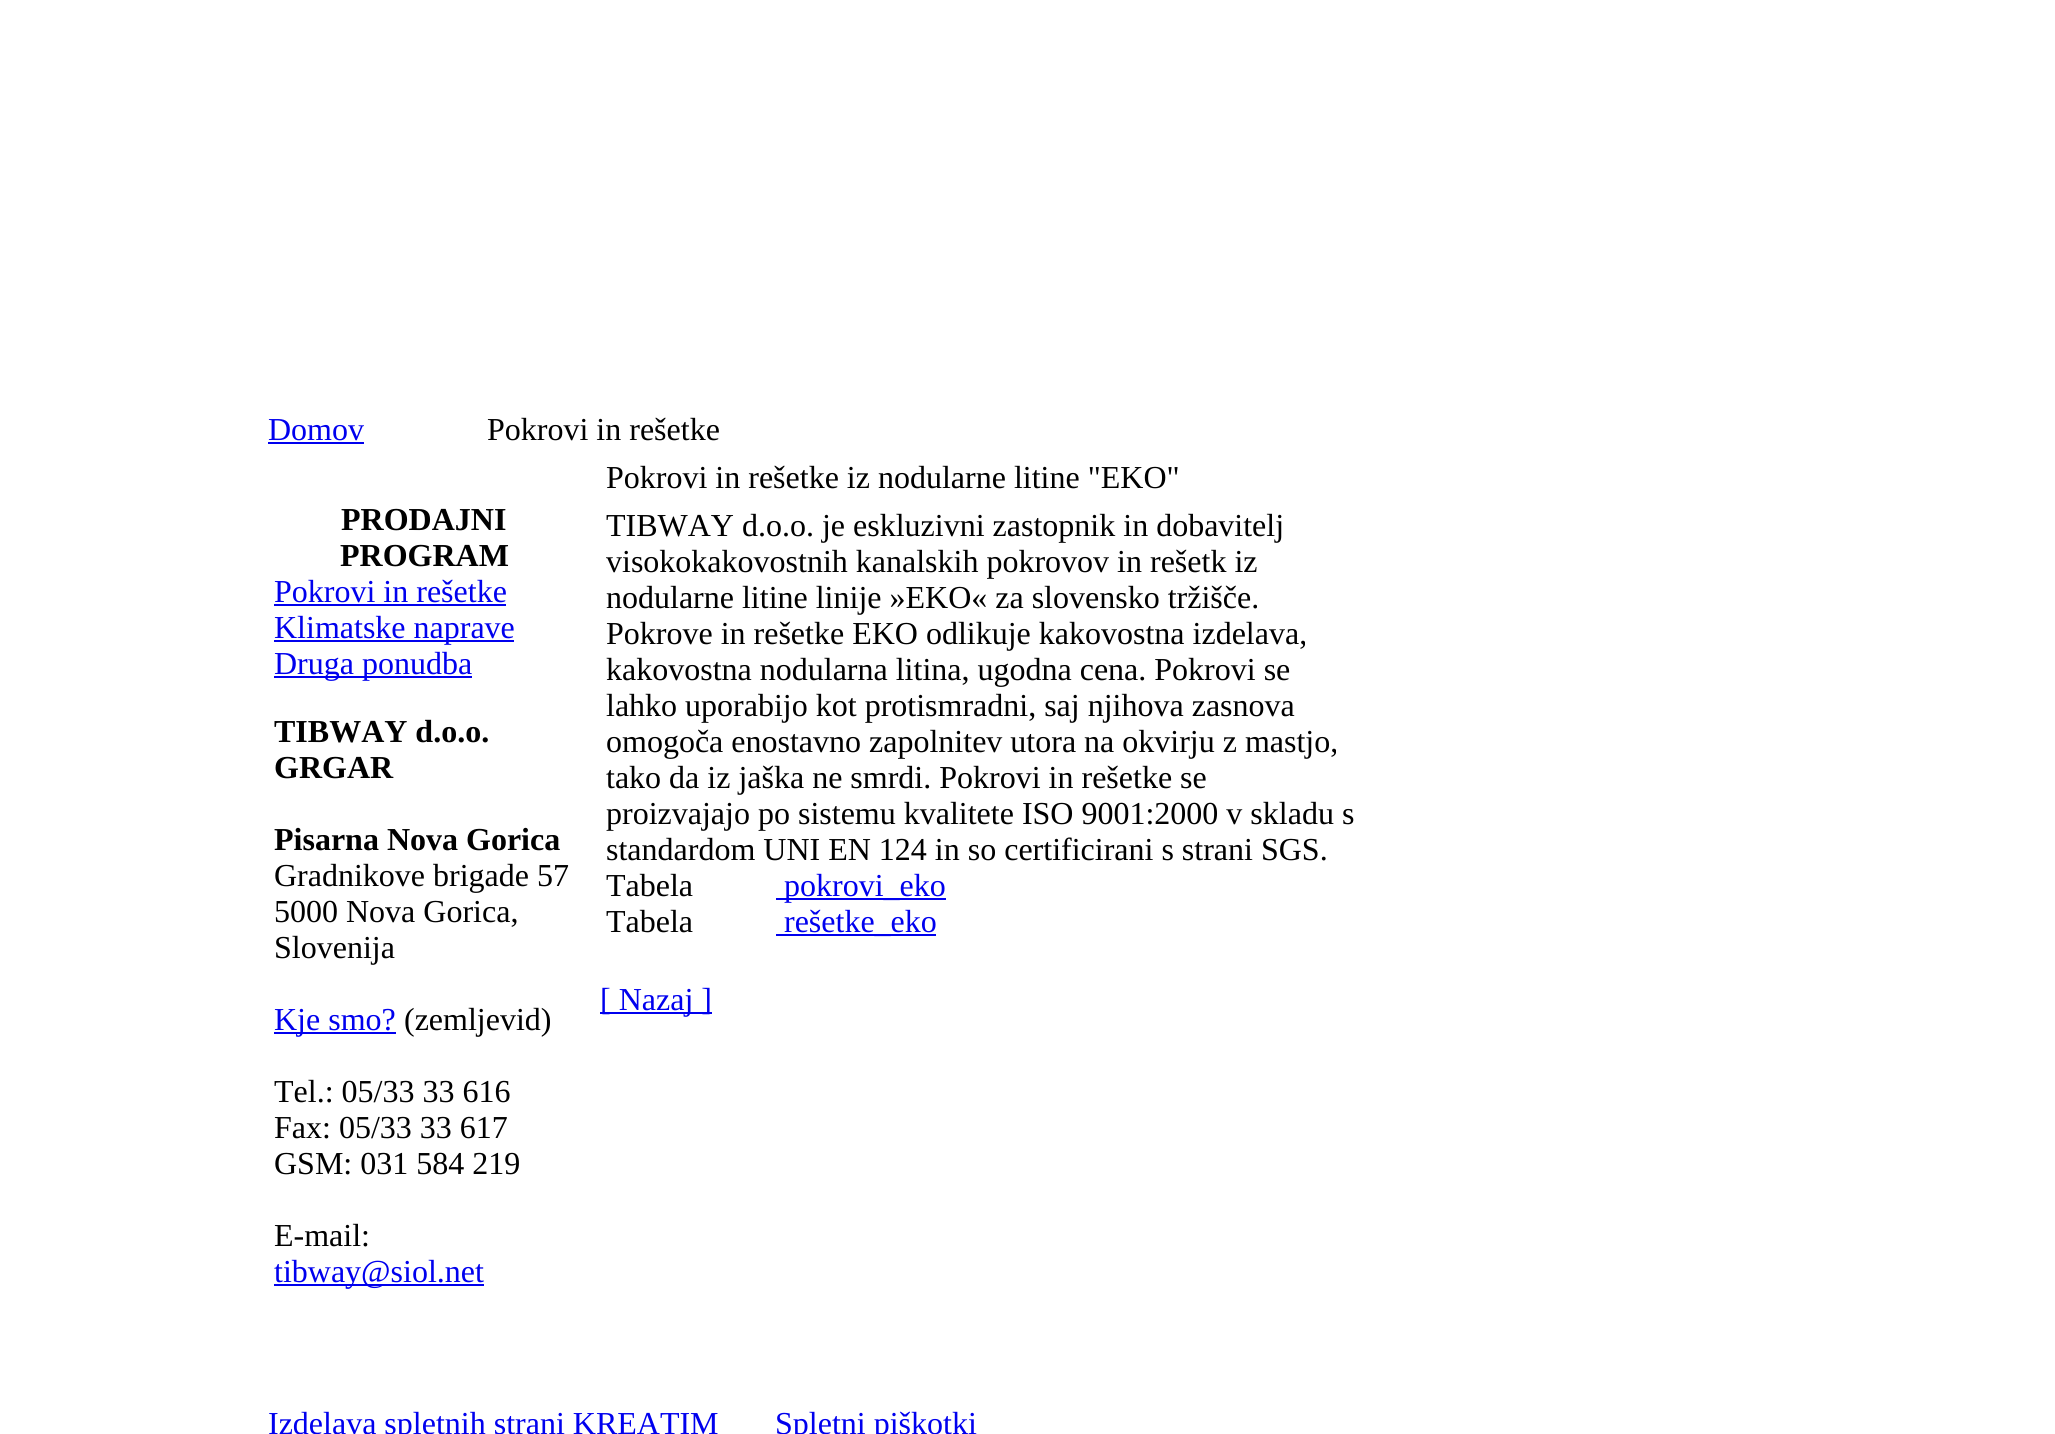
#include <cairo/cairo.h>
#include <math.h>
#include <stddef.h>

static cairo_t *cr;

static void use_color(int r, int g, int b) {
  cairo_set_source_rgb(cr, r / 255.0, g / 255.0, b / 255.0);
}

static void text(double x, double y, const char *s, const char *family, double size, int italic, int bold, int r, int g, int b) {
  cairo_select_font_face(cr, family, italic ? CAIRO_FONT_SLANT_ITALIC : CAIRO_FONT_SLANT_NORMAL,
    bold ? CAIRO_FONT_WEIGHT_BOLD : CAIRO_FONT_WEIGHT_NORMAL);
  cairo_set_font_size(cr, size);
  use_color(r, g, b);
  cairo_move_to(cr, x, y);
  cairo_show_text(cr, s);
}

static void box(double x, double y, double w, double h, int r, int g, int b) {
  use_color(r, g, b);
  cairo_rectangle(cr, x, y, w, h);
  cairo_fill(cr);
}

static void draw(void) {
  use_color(255, 255, 255);
  cairo_paint(cr);
  box(268, 442, 96, 2, 0, 0, 238);
  box(274, 604, 232, 2, 0, 0, 238);
  box(274, 640, 240, 2, 0, 0, 238);
  box(274, 676, 198, 2, 0, 0, 238);
  box(274, 1032, 122, 2, 0, 0, 238);
  box(274, 1284, 210, 2, 0, 0, 238);
  box(776, 898, 170, 2, 0, 0, 238);
  box(776, 934, 160, 2, 0, 0, 238);
  box(600, 1012, 112, 2, 0, 0, 238);
  text(268, 440, "Domov", "Liberation Serif", 32, 0, 0, 0, 0, 238);
  text(487, 440, "Pokrovi in rešetke", "Liberation Serif", 32, 0, 0, 0, 0, 0);
  text(341, 530, "PRODAJNI", "Liberation Serif", 32, 0, 1, 0, 0, 0);
  text(340, 566, "PROGRAM", "Liberation Serif", 32, 0, 1, 0, 0, 0);
  text(274, 602, "Pokrovi in rešetke", "Liberation Serif", 32, 0, 0, 0, 0, 238);
  text(274, 638, "Klimatske naprave", "Liberation Serif", 32, 0, 0, 0, 0, 238);
  text(274, 674, "Druga ponudba", "Liberation Serif", 32, 0, 0, 0, 0, 238);
  text(274, 742, "TIBWAY d.o.o.", "Liberation Serif", 32, 0, 1, 0, 0, 0);
  text(274, 778, "GRGAR", "Liberation Serif", 32, 0, 1, 0, 0, 0);
  text(274, 850, "Pisarna Nova Gorica", "Liberation Serif", 32, 0, 1, 0, 0, 0);
  text(274, 886, "Gradnikove brigade 57", "Liberation Serif", 32, 0, 0, 0, 0, 0);
  text(274, 922, "5000 Nova Gorica,", "Liberation Serif", 32, 0, 0, 0, 0, 0);
  text(274, 958, "Slovenija", "Liberation Serif", 32, 0, 0, 0, 0, 0);
  text(274, 1030, "Kje smo?", "Liberation Serif", 32, 0, 0, 0, 0, 238);
  text(404, 1030, "(zemljevid)", "Liberation Serif", 32, 0, 0, 0, 0, 0);
  text(274, 1102, "Tel.: 05/33 33 616", "Liberation Serif", 32, 0, 0, 0, 0, 0);
  text(274, 1138, "Fax: 05/33 33 617", "Liberation Serif", 32, 0, 0, 0, 0, 0);
  text(274, 1174, "GSM: 031 584 219", "Liberation Serif", 32, 0, 0, 0, 0, 0);
  text(274, 1246, "E-mail:", "Liberation Serif", 32, 0, 0, 0, 0, 0);
  text(274, 1282, "tibway@siol.net", "Liberation Serif", 32, 0, 0, 0, 0, 238);
  text(606, 488, "Pokrovi in rešetke iz nodularne litine \"EKO\"", "Liberation Serif", 32, 0, 0, 0, 0, 0);
  text(606, 536, "TIBWAY d.o.o. je eskluzivni zastopnik in dobavitelj", "Liberation Serif", 32, 0, 0, 0, 0, 0);
  text(606, 572, "visokokakovostnih kanalskih pokrovov in rešetk iz", "Liberation Serif", 32, 0, 0, 0, 0, 0);
  text(606, 608, "nodularne litine linije »EKO« za slovensko tržišče.", "Liberation Serif", 32, 0, 0, 0, 0, 0);
  text(606, 644, "Pokrove in rešetke EKO odlikuje kakovostna izdelava,", "Liberation Serif", 32, 0, 0, 0, 0, 0);
  text(606, 680, "kakovostna nodularna litina, ugodna cena. Pokrovi se", "Liberation Serif", 32, 0, 0, 0, 0, 0);
  text(606, 716, "lahko uporabijo kot protismradni, saj njihova zasnova", "Liberation Serif", 32, 0, 0, 0, 0, 0);
  text(606, 752, "omogoča enostavno zapolnitev utora na okvirju z mastjo,", "Liberation Serif", 32, 0, 0, 0, 0, 0);
  text(606, 788, "tako da iz jaška ne smrdi. Pokrovi in rešetke se", "Liberation Serif", 32, 0, 0, 0, 0, 0);
  text(606, 824, "proizvajajo po sistemu kvalitete ISO 9001:2000 v skladu s", "Liberation Serif", 32, 0, 0, 0, 0, 0);
  text(606, 860, "standardom UNI EN 124 in so certificirani s strani SGS.", "Liberation Serif", 32, 0, 0, 0, 0, 0);
  text(606, 896, "Tabela", "Liberation Serif", 32, 0, 0, 0, 0, 0);
  text(784, 896, "pokrovi_eko", "Liberation Serif", 32, 0, 0, 0, 0, 238);
  text(606, 932, "Tabela", "Liberation Serif", 32, 0, 0, 0, 0, 0);
  text(784, 932, "rešetke_eko", "Liberation Serif", 32, 0, 0, 0, 0, 238);
  text(600, 1010, "[ Nazaj ]", "Liberation Serif", 32, 0, 0, 0, 0, 238);
  text(268, 1434, "Izdelava spletnih strani KREATIM", "Liberation Serif", 32, 0, 0, 0, 0, 238);
  text(775, 1434, "Spletni piškotki", "Liberation Serif", 32, 0, 0, 0, 0, 238);
}

int main(void) {
  cairo_surface_t *surface = cairo_image_surface_create(CAIRO_FORMAT_RGB24, 2055, 1434);
  cr = cairo_create(surface);
  cairo_font_options_t *options = cairo_font_options_create();
  cairo_font_options_set_hint_metrics(options, CAIRO_HINT_METRICS_OFF);
  cairo_font_options_set_hint_style(options, CAIRO_HINT_STYLE_NONE);
  cairo_set_font_options(cr, options);
  cairo_set_miter_limit(cr, 4);
  draw();
  cairo_surface_write_to_png(surface, "out.png");
  cairo_font_options_destroy(options);
  cairo_destroy(cr);
  cairo_surface_destroy(surface);
  return 0;
}
